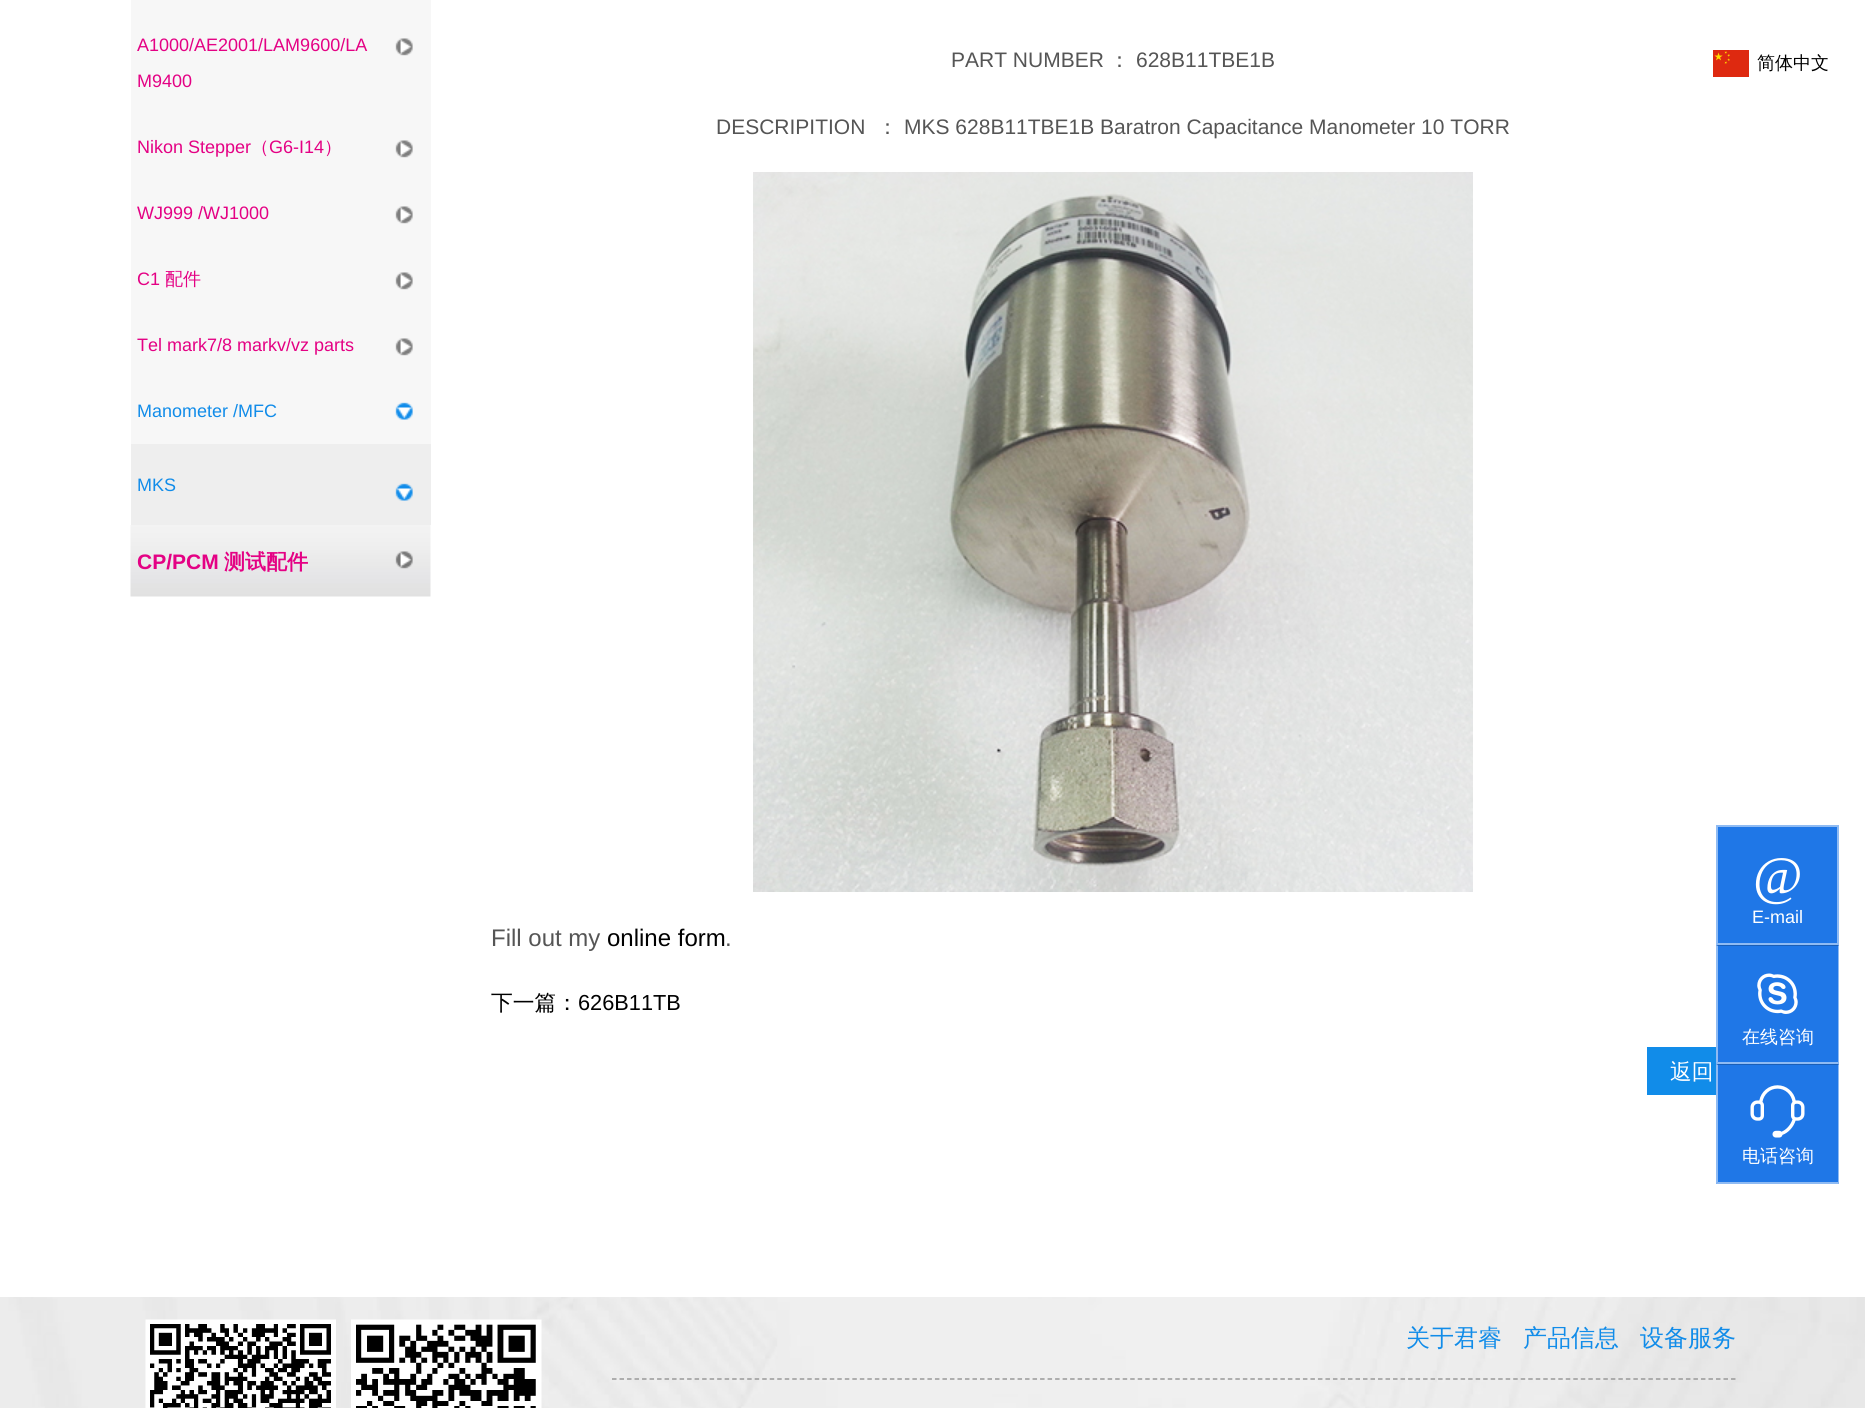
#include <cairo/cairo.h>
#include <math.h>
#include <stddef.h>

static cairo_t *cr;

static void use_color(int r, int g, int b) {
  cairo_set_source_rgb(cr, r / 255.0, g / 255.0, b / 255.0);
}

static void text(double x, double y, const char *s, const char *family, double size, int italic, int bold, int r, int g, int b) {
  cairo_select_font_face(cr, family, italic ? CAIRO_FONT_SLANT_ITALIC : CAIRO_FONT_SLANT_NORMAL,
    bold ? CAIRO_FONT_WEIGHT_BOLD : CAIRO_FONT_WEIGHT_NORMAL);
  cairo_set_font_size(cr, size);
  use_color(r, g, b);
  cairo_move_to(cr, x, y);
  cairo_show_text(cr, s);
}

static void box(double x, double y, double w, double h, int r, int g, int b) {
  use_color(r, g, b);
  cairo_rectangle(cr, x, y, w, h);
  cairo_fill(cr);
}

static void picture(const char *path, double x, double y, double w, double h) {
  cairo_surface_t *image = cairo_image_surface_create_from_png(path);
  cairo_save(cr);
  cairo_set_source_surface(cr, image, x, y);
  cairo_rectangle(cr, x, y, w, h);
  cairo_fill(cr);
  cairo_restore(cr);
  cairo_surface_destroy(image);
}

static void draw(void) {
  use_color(255, 255, 255);
  cairo_paint(cr);
  box(131, 0, 300, 444, 247, 247, 247);
  picture("img_01.png", 395, 38, 18, 18);
  picture("img_01.png", 395, 140, 18, 18);
  picture("img_01.png", 395, 206, 18, 18);
  picture("img_01.png", 395, 272, 18, 18);
  picture("img_01.png", 395, 338, 18, 18);
  picture("img_02.png", 395, 402, 18, 18);
  box(131, 444, 300, 81, 238, 238, 238);
  picture("img_03.png", 395, 483, 18, 18);
  picture("img_04.png", 130, 525, 301, 72);
  picture("img_05.png", 395, 551, 18, 18);
  picture("img_06.png", 753, 172, 720, 720);
  box(1647, 1047, 69, 48, 17, 140, 233);
  picture("img_07.png", 0, 1297, 1865, 111);
  picture("img_08.png", 145, 1319, 191, 89);
  picture("img_09.png", 351, 1319, 191, 89);
  cairo_new_path(cr);
  cairo_move_to(cr, 612, 1379);
  cairo_line_to(cr, 1735.5, 1379);
  use_color(153, 153, 153);
  cairo_set_line_width(cr, 1.5);
  cairo_set_dash(cr, (double[]){4.5, 3.01}, 2, 0);
  cairo_stroke(cr);
  picture("img_10.png", 1713, 50, 36, 27);
  use_color(31, 119, 231);
  cairo_rectangle(cr, 1717, 826, 121, 118);
  cairo_fill_preserve(cr);
  use_color(143, 187, 243);
  cairo_set_line_width(cr, 2);
  cairo_set_dash(cr, NULL, 0, 0);
  cairo_stroke(cr);
  box(1716, 945, 123, 239, 31, 119, 231);
  use_color(25, 95, 185);
  cairo_new_path(cr);
  cairo_move_to(cr, 1716, 945);
  cairo_line_to(cr, 1839, 945);
  cairo_line_to(cr, 1838, 946);
  cairo_line_to(cr, 1718, 946);
  cairo_close_path(cr);
  cairo_fill(cr);
  cairo_set_source_rgba(cr, 1, 1, 1, 0.5);
  cairo_new_path(cr);
  cairo_move_to(cr, 1839, 945);
  cairo_line_to(cr, 1839, 1064);
  cairo_line_to(cr, 1838, 1062);
  cairo_line_to(cr, 1838, 946);
  cairo_close_path(cr);
  cairo_fill(cr);
  cairo_new_path(cr);
  cairo_move_to(cr, 1839, 1064);
  cairo_line_to(cr, 1716, 1064);
  cairo_line_to(cr, 1718, 1062);
  cairo_line_to(cr, 1838, 1062);
  cairo_close_path(cr);
  cairo_fill(cr);
  cairo_new_path(cr);
  cairo_move_to(cr, 1716, 1064);
  cairo_line_to(cr, 1716, 945);
  cairo_line_to(cr, 1718, 946);
  cairo_line_to(cr, 1718, 1062);
  cairo_close_path(cr);
  cairo_fill(cr);
  picture("img_11.png", 1757, 973, 41, 41);
  use_color(25, 95, 185);
  cairo_new_path(cr);
  cairo_move_to(cr, 1716, 1064);
  cairo_line_to(cr, 1839, 1064);
  cairo_line_to(cr, 1838, 1065);
  cairo_line_to(cr, 1718, 1065);
  cairo_close_path(cr);
  cairo_fill(cr);
  cairo_set_source_rgba(cr, 1, 1, 1, 0.5);
  cairo_new_path(cr);
  cairo_move_to(cr, 1839, 1064);
  cairo_line_to(cr, 1839, 1184);
  cairo_line_to(cr, 1838, 1182);
  cairo_line_to(cr, 1838, 1065);
  cairo_close_path(cr);
  cairo_fill(cr);
  cairo_new_path(cr);
  cairo_move_to(cr, 1839, 1184);
  cairo_line_to(cr, 1716, 1184);
  cairo_line_to(cr, 1718, 1182);
  cairo_line_to(cr, 1838, 1182);
  cairo_close_path(cr);
  cairo_fill(cr);
  cairo_new_path(cr);
  cairo_move_to(cr, 1716, 1184);
  cairo_line_to(cr, 1716, 1064);
  cairo_line_to(cr, 1718, 1065);
  cairo_line_to(cr, 1718, 1182);
  cairo_close_path(cr);
  cairo_fill(cr);
  picture("img_12.png", 1750, 1085, 55, 53);
  text(137, 51, "A1000/AE2001/LAM9600/LA", "Liberation Sans", 18, 0, 0, 228, 1, 132);
  text(137, 87, "M9400", "Liberation Sans", 18, 0, 0, 228, 1, 132);
  text(137, 153, "Nikon Stepper", "Liberation Sans", 18, 0, 0, 228, 1, 132);
  text(251, 153, "（", "WenQuanYi Zen Hei Medium", 18, 0, 0, 228, 1, 132);
  text(269, 153, "G6-I14", "Liberation Sans", 18, 0, 0, 228, 1, 132);
  text(324, 153, "）", "WenQuanYi Zen Hei Medium", 18, 0, 0, 228, 1, 132);
  text(137, 219, "WJ999 /WJ1000", "Liberation Sans", 18, 0, 0, 228, 1, 132);
  text(137, 285, "C1", "Liberation Sans", 18, 0, 0, 228, 1, 132);
  text(165, 285, "配件", "WenQuanYi Zen Hei Medium", 18, 0, 0, 228, 1, 132);
  text(137, 351, "Tel mark7/8 markv/vz parts", "Liberation Sans", 18, 0, 0, 228, 1, 132);
  text(137, 417, "Manometer /MFC", "Liberation Sans", 18, 0, 0, 17, 140, 233);
  text(137, 491, "MKS", "Liberation Sans", 18, 0, 0, 17, 140, 233);
  text(137, 569, "CP/PCM", "Liberation Sans", 21, 0, 1, 228, 1, 132);
  text(224, 569, "测试配件", "WenQuanYi Zen Hei", 21, 0, 1, 228, 1, 132);
  text(951, 67, "PART NUMBER", "Liberation Sans", 21, 0, 0, 85, 85, 85);
  text(1109, 67, "：", "WenQuanYi Zen Hei Medium", 21, 0, 0, 85, 85, 85);
  text(1136, 67, "628B11TBE1B", "Liberation Sans", 21, 0, 0, 85, 85, 85);
  text(716, 134, "DESCRIPITION", "Liberation Sans", 21, 0, 0, 85, 85, 85);
  text(877, 134, "：", "WenQuanYi Zen Hei Medium", 21, 0, 0, 85, 85, 85);
  text(904, 134, "MKS 628B11TBE1B Baratron Capacitance Manometer 10 TORR", "Liberation Sans", 21, 0, 0, 85, 85, 85);
  text(491, 946, "Fill out my", "Liberation Sans", 24, 0, 0, 85, 85, 85);
  text(607, 946, "online form", "Liberation Sans", 24, 0, 0, 0, 0, 0);
  text(725, 946, ".", "Liberation Sans", 24, 0, 0, 85, 85, 85);
  text(491, 1010, "下一篇：", "WenQuanYi Zen Hei Medium", 21.75, 0, 0, 0, 0, 0);
  text(578, 1010, "626B11TB", "Liberation Sans", 21.75, 0, 0, 0, 0, 0);
  text(1670, 1079, "返回", "WenQuanYi Zen Hei Medium", 21.75, 0, 0, 255, 255, 255);
  text(1406, 1346, "关于君睿", "WenQuanYi Zen Hei Medium", 24, 0, 0, 17, 140, 233);
  text(1523, 1346, "产品信息", "WenQuanYi Zen Hei Medium", 24, 0, 0, 17, 140, 233);
  text(1640, 1346, "设备服务", "WenQuanYi Zen Hei Medium", 24, 0, 0, 17, 140, 233);
  text(1757, 69, "简体中文", "WenQuanYi Zen Hei Medium", 18, 0, 0, 0, 0, 0);
  text(1753, 894, "@", "Liberation Serif", 54, 0, 0, 255, 255, 255);
  text(1752, 923, "E-mail", "Liberation Sans", 18, 0, 0, 255, 255, 255);
  text(1742, 1043, "在线咨询", "WenQuanYi Zen Hei Medium", 18, 0, 0, 255, 255, 255);
  text(1742, 1162, "电话咨询", "WenQuanYi Zen Hei Medium", 18, 0, 0, 255, 255, 255);
}

int main(void) {
  cairo_surface_t *surface = cairo_image_surface_create(CAIRO_FORMAT_RGB24, 1865, 1408);
  cr = cairo_create(surface);
  cairo_font_options_t *options = cairo_font_options_create();
  cairo_font_options_set_hint_metrics(options, CAIRO_HINT_METRICS_OFF);
  cairo_font_options_set_hint_style(options, CAIRO_HINT_STYLE_NONE);
  cairo_set_font_options(cr, options);
  cairo_set_miter_limit(cr, 4);
  draw();
  cairo_surface_write_to_png(surface, "out.png");
  cairo_font_options_destroy(options);
  cairo_destroy(cr);
  cairo_surface_destroy(surface);
  return 0;
}
